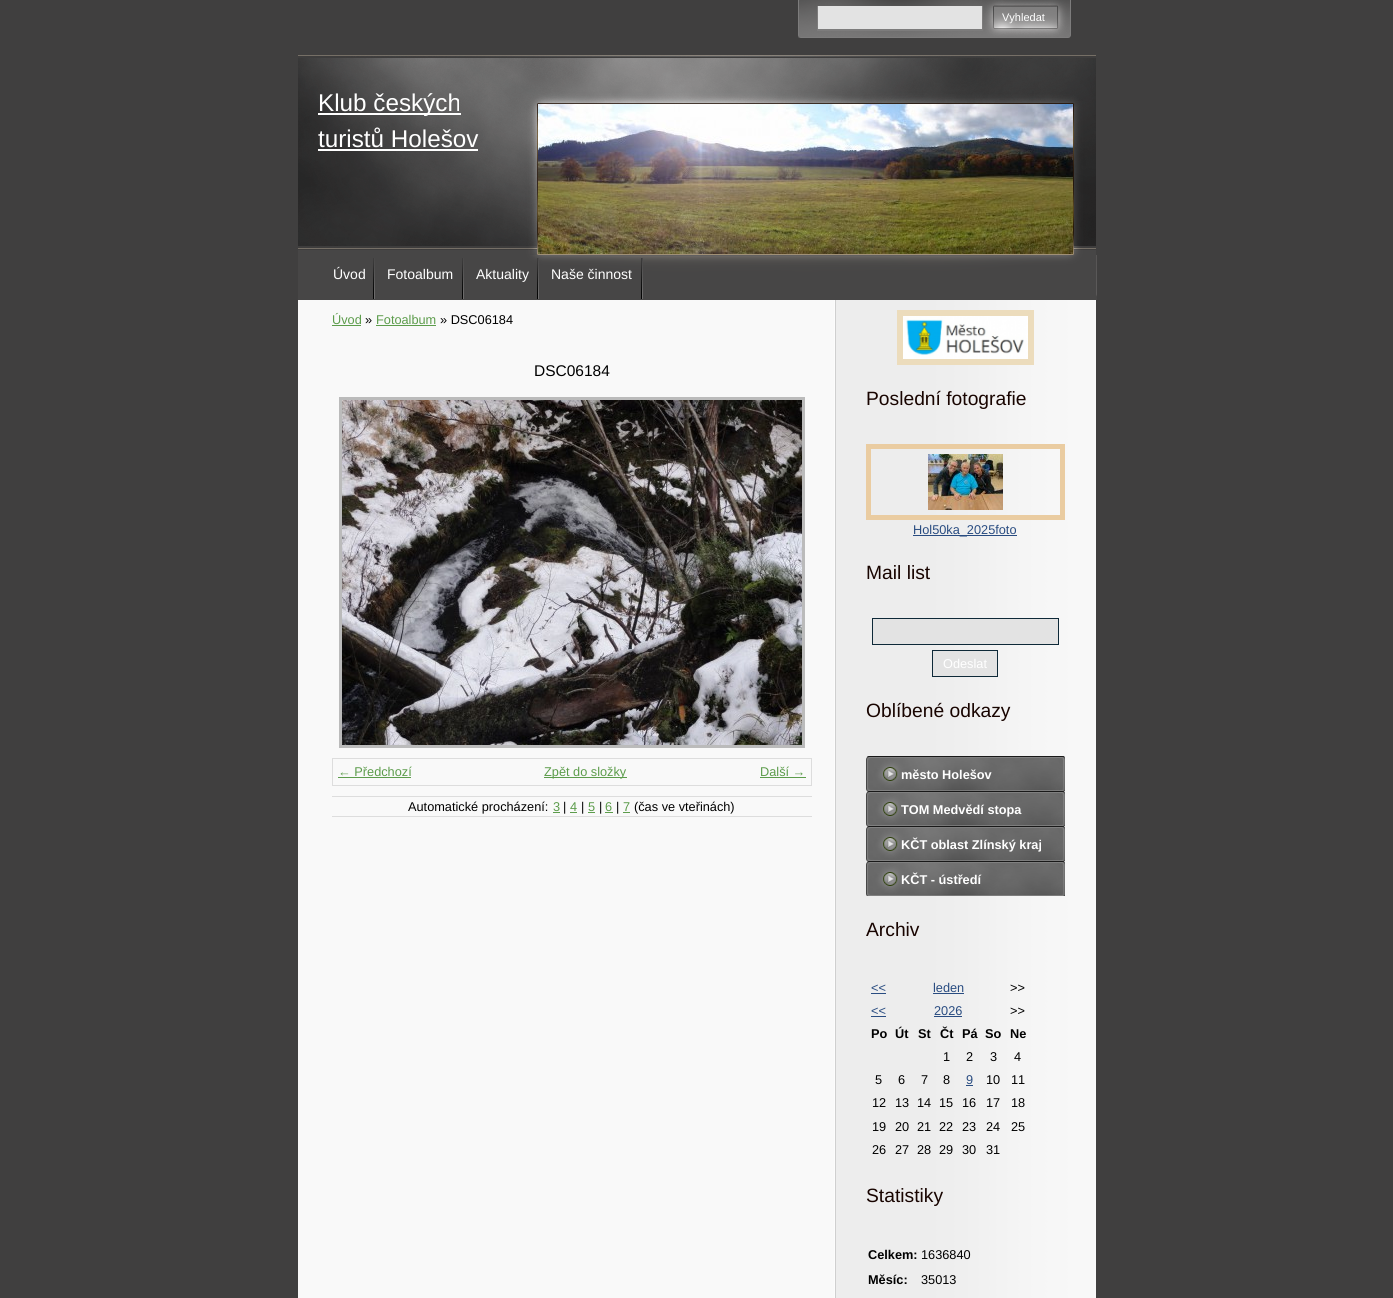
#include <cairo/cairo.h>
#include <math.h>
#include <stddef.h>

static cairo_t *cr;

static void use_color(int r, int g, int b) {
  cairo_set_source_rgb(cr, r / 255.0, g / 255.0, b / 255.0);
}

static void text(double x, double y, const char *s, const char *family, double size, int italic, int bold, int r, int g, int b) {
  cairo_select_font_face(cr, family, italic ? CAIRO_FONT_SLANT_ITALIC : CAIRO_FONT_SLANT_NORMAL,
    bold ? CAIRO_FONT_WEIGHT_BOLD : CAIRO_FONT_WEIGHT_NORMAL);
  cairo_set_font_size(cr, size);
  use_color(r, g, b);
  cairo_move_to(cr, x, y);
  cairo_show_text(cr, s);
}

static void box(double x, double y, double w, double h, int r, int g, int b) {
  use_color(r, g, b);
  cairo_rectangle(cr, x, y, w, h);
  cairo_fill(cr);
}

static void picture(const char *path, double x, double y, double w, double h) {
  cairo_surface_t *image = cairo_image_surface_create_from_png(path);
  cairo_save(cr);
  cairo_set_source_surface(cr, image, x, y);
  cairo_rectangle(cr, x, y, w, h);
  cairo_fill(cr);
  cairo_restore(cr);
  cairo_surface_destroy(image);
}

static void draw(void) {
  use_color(64, 63, 63);
  cairo_paint(cr);
  picture("img_01.png", 298, 300, 798, 998);
  picture("img_02.png", 297, 255, 800, 45);
  picture("img_03.png", 373, 258, 2, 41);
  picture("img_03.png", 462, 258, 2, 41);
  picture("img_03.png", 537, 258, 2, 41);
  picture("img_03.png", 641, 258, 2, 41);
  picture("img_04.png", 798, 0, 273, 38);
  box(818, 6, 164, 23, 227, 227, 227);
  cairo_rectangle(cr, 900, 313, 131, 49);
  use_color(236, 220, 188);
  cairo_set_line_width(cr, 6);
  cairo_stroke(cr);
  picture("img_05.png", 903, 316, 125, 43);
  cairo_rectangle(cr, 868.5, 446.5, 194, 71);
  use_color(234, 204, 161);
  cairo_set_line_width(cr, 5);
  cairo_stroke(cr);
  picture("img_06.png", 928, 454, 75, 56);
  box(913, 535, 104, 1, 41, 76, 129);
  use_color(227, 227, 227);
  cairo_rectangle(cr, 872.5, 618.5, 186, 26);
  cairo_fill_preserve(cr);
  use_color(14, 41, 56);
  cairo_set_line_width(cr, 1);
  cairo_stroke(cr);
  use_color(227, 227, 227);
  cairo_rectangle(cr, 932.5, 650.5, 65, 26);
  cairo_fill_preserve(cr);
  use_color(14, 41, 56);
  cairo_stroke(cr);
  picture("img_07.png", 866, 756, 199, 35);
  picture("img_07.png", 866, 791, 199, 35);
  picture("img_07.png", 866, 826, 199, 35);
  picture("img_07.png", 866, 861, 199, 35);
  box(871, 993, 15, 1, 41, 76, 129);
  box(933, 993, 31, 1, 41, 76, 129);
  box(871, 1016, 15, 1, 41, 76, 129);
  box(934, 1016, 28, 1, 41, 76, 129);
  box(966, 1085, 7, 1, 41, 76, 129);
  box(332, 325, 29, 1, 92, 156, 75);
  box(376, 325, 60, 1, 92, 156, 75);
  cairo_rectangle(cr, 340.5, 398.5, 463, 348);
  use_color(187, 187, 187);
  cairo_set_line_width(cr, 3);
  cairo_stroke(cr);
  picture("img_08.png", 342, 400, 460, 345);
  cairo_rectangle(cr, 332.5, 758.5, 479, 27);
  use_color(221, 221, 221);
  cairo_set_line_width(cr, 1);
  cairo_stroke(cr);
  box(338, 777, 73, 1, 92, 156, 75);
  box(544, 777, 83, 1, 92, 156, 75);
  box(760, 777, 46, 1, 92, 156, 75);
  cairo_save(cr);
  cairo_rectangle(cr, 332, 339, 480, 501);
  cairo_clip(cr);
  cairo_rectangle(cr, 307.5, 796.5, 529, 20);
  use_color(221, 221, 221);
  cairo_stroke(cr);
  cairo_restore(cr);
  box(553, 812, 7, 1, 92, 156, 75);
  box(570, 812, 7, 1, 92, 156, 75);
  box(588, 812, 7, 1, 92, 156, 75);
  box(605, 812, 8, 1, 92, 156, 75);
  box(623, 812, 7, 1, 92, 156, 75);
  picture("img_09.png", 298, 55, 798, 200);
  box(318, 113, 143, 2, 255, 255, 255);
  box(318, 149, 160, 2, 255, 255, 255);
  picture("img_10.png", 538, 104, 535, 150);
  text(333, 279, "Úvod", "Liberation Sans", 14, 0, 0, 255, 255, 255);
  text(387, 279, "Fotoalbum", "Liberation Sans", 14, 0, 0, 255, 255, 255);
  text(476, 279, "Aktuality", "Liberation Sans", 14, 0, 0, 255, 255, 255);
  text(551, 279, "Naše činnost", "Liberation Sans", 14, 0, 0, 255, 255, 255);
  text(1002, 21, "Vyhledat", "Liberation Sans", 11, 0, 0, 255, 255, 255);
  text(866, 405, "Poslední fotografie", "Liberation Sans", 19.25, 0, 0, 24, 4, 0);
  text(913, 534, "Hol50ka_2025foto", "Liberation Sans", 12.75, 0, 0, 41, 76, 129);
  text(866, 579, "Mail list", "Liberation Sans", 19.25, 0, 0, 24, 4, 0);
  text(943, 668, "Odeslat", "Liberation Sans", 12.75, 0, 0, 255, 255, 255);
  text(866, 717, "Oblíbené odkazy", "Liberation Sans", 19.25, 0, 0, 24, 4, 0);
  text(901, 779, "město Holešov", "Liberation Sans", 12.75, 0, 1, 255, 255, 255);
  text(901, 814, "TOM Medvědí stopa", "Liberation Sans", 12.75, 0, 1, 255, 255, 255);
  text(901, 849, "KČT oblast Zlínský kraj", "Liberation Sans", 12.75, 0, 1, 255, 255, 255);
  text(901, 884, "KČT - ústředí", "Liberation Sans", 12.75, 0, 1, 255, 255, 255);
  text(866, 936, "Archiv", "Liberation Sans", 19.25, 0, 0, 24, 4, 0);
  text(871, 992, "<<", "Liberation Sans", 12.75, 0, 0, 41, 76, 129);
  text(933, 992, "leden", "Liberation Sans", 12.75, 0, 0, 41, 76, 129);
  text(1010, 992, ">>", "Liberation Sans", 12.75, 0, 0, 0, 0, 0);
  text(871, 1015, "<<", "Liberation Sans", 12.75, 0, 0, 41, 76, 129);
  text(934, 1015, "2026", "Liberation Sans", 12.75, 0, 0, 41, 76, 129);
  text(1010, 1015, ">>", "Liberation Sans", 12.75, 0, 0, 0, 0, 0);
  text(871, 1038, "Po", "Liberation Sans", 12.75, 0, 1, 0, 0, 0);
  text(895, 1038, "Út", "Liberation Sans", 12.75, 0, 1, 0, 0, 0);
  text(918, 1038, "St", "Liberation Sans", 12.75, 0, 1, 0, 0, 0);
  text(940, 1038, "Čt", "Liberation Sans", 12.75, 0, 1, 0, 0, 0);
  text(962, 1038, "Pá", "Liberation Sans", 12.75, 0, 1, 0, 0, 0);
  text(985, 1038, "So", "Liberation Sans", 12.75, 0, 1, 0, 0, 0);
  text(1010, 1038, "Ne", "Liberation Sans", 12.75, 0, 1, 0, 0, 0);
  text(943, 1061, "1", "Liberation Sans", 12.75, 0, 0, 0, 0, 0);
  text(966, 1061, "2", "Liberation Sans", 12.75, 0, 0, 0, 0, 0);
  text(990, 1061, "3", "Liberation Sans", 12.75, 0, 0, 0, 0, 0);
  text(1014, 1061, "4", "Liberation Sans", 12.75, 0, 0, 0, 0, 0);
  text(875, 1084, "5", "Liberation Sans", 12.75, 0, 0, 0, 0, 0);
  text(898, 1084, "6", "Liberation Sans", 12.75, 0, 0, 0, 0, 0);
  text(921, 1084, "7", "Liberation Sans", 12.75, 0, 0, 0, 0, 0);
  text(943, 1084, "8", "Liberation Sans", 12.75, 0, 0, 0, 0, 0);
  text(966, 1084, "9", "Liberation Sans", 12.75, 0, 0, 41, 76, 129);
  text(986, 1084, "10", "Liberation Sans", 12.75, 0, 0, 0, 0, 0);
  text(1011, 1084, "11", "Liberation Sans", 12.75, 0, 0, 0, 0, 0);
  text(872, 1107, "12", "Liberation Sans", 12.75, 0, 0, 0, 0, 0);
  text(895, 1107, "13", "Liberation Sans", 12.75, 0, 0, 0, 0, 0);
  text(917, 1107, "14", "Liberation Sans", 12.75, 0, 0, 0, 0, 0);
  text(939, 1107, "15", "Liberation Sans", 12.75, 0, 0, 0, 0, 0);
  text(962, 1107, "16", "Liberation Sans", 12.75, 0, 0, 0, 0, 0);
  text(986, 1107, "17", "Liberation Sans", 12.75, 0, 0, 0, 0, 0);
  text(1011, 1107, "18", "Liberation Sans", 12.75, 0, 0, 0, 0, 0);
  text(872, 1131, "19", "Liberation Sans", 12.75, 0, 0, 0, 0, 0);
  text(895, 1131, "20", "Liberation Sans", 12.75, 0, 0, 0, 0, 0);
  text(917, 1131, "21", "Liberation Sans", 12.75, 0, 0, 0, 0, 0);
  text(939, 1131, "22", "Liberation Sans", 12.75, 0, 0, 0, 0, 0);
  text(962, 1131, "23", "Liberation Sans", 12.75, 0, 0, 0, 0, 0);
  text(986, 1131, "24", "Liberation Sans", 12.75, 0, 0, 0, 0, 0);
  text(1011, 1131, "25", "Liberation Sans", 12.75, 0, 0, 0, 0, 0);
  text(872, 1154, "26", "Liberation Sans", 12.75, 0, 0, 0, 0, 0);
  text(895, 1154, "27", "Liberation Sans", 12.75, 0, 0, 0, 0, 0);
  text(917, 1154, "28", "Liberation Sans", 12.75, 0, 0, 0, 0, 0);
  text(939, 1154, "29", "Liberation Sans", 12.75, 0, 0, 0, 0, 0);
  text(962, 1154, "30", "Liberation Sans", 12.75, 0, 0, 0, 0, 0);
  text(986, 1154, "31", "Liberation Sans", 12.75, 0, 0, 0, 0, 0);
  text(866, 1202, "Statistiky", "Liberation Sans", 19.25, 0, 0, 24, 4, 0);
  text(868, 1259, "Celkem:", "Liberation Sans", 12.75, 0, 1, 0, 0, 0);
  text(921, 1259, "1636840", "Liberation Sans", 12.75, 0, 0, 0, 0, 0);
  text(868, 1284, "Měsíc:", "Liberation Sans", 12.75, 0, 1, 0, 0, 0);
  text(921, 1284, "35013", "Liberation Sans", 12.75, 0, 0, 0, 0, 0);
  text(332, 324, "Úvod", "Liberation Sans", 12.75, 0, 0, 92, 156, 75);
  text(365, 324, "»", "Liberation Sans", 12.75, 0, 0, 0, 0, 0);
  text(376, 324, "Fotoalbum", "Liberation Sans", 12.75, 0, 0, 92, 156, 75);
  text(440, 324, "» DSC06184", "Liberation Sans", 12.75, 0, 0, 0, 0, 0);
  text(534, 376, "DSC06184", "Liberation Sans", 15.5, 0, 0, 0, 0, 0);
  text(338, 776, "← Předchozí", "Liberation Sans", 12.75, 0, 0, 92, 156, 75);
  text(544, 776, "Zpět do složky", "Liberation Sans", 12.75, 0, 0, 92, 156, 75);
  text(760, 776, "Další →", "Liberation Sans", 12.75, 0, 0, 92, 156, 75);
  text(408, 811, "Automatické procházení:", "Liberation Sans", 12.75, 0, 0, 0, 0, 0);
  text(553, 811, "3", "Liberation Sans", 12.75, 0, 0, 92, 156, 75);
  text(563, 811, "|", "Liberation Sans", 12.75, 0, 0, 0, 0, 0);
  text(570, 811, "4", "Liberation Sans", 12.75, 0, 0, 92, 156, 75);
  text(581, 811, "|", "Liberation Sans", 12.75, 0, 0, 0, 0, 0);
  text(588, 811, "5", "Liberation Sans", 12.75, 0, 0, 92, 156, 75);
  text(599, 811, "|", "Liberation Sans", 12.75, 0, 0, 0, 0, 0);
  text(605, 811, "6", "Liberation Sans", 12.75, 0, 0, 92, 156, 75);
  text(616, 811, "|", "Liberation Sans", 12.75, 0, 0, 0, 0, 0);
  text(623, 811, "7", "Liberation Sans", 12.75, 0, 0, 92, 156, 75);
  text(634, 811, "(čas ve vteřinách)", "Liberation Sans", 12.75, 0, 0, 0, 0, 0);
  text(318, 111, "Klub českých", "Liberation Sans", 24.25, 0, 0, 255, 255, 255);
  text(318, 147, "turistů Holešov", "Liberation Sans", 24.25, 0, 0, 255, 255, 255);
}

int main(void) {
  cairo_surface_t *surface = cairo_image_surface_create(CAIRO_FORMAT_RGB24, 1393, 1298);
  cr = cairo_create(surface);
  cairo_font_options_t *options = cairo_font_options_create();
  cairo_font_options_set_hint_metrics(options, CAIRO_HINT_METRICS_OFF);
  cairo_font_options_set_hint_style(options, CAIRO_HINT_STYLE_NONE);
  cairo_set_font_options(cr, options);
  cairo_set_miter_limit(cr, 4);
  draw();
  cairo_surface_write_to_png(surface, "out.png");
  cairo_font_options_destroy(options);
  cairo_destroy(cr);
  cairo_surface_destroy(surface);
  return 0;
}
